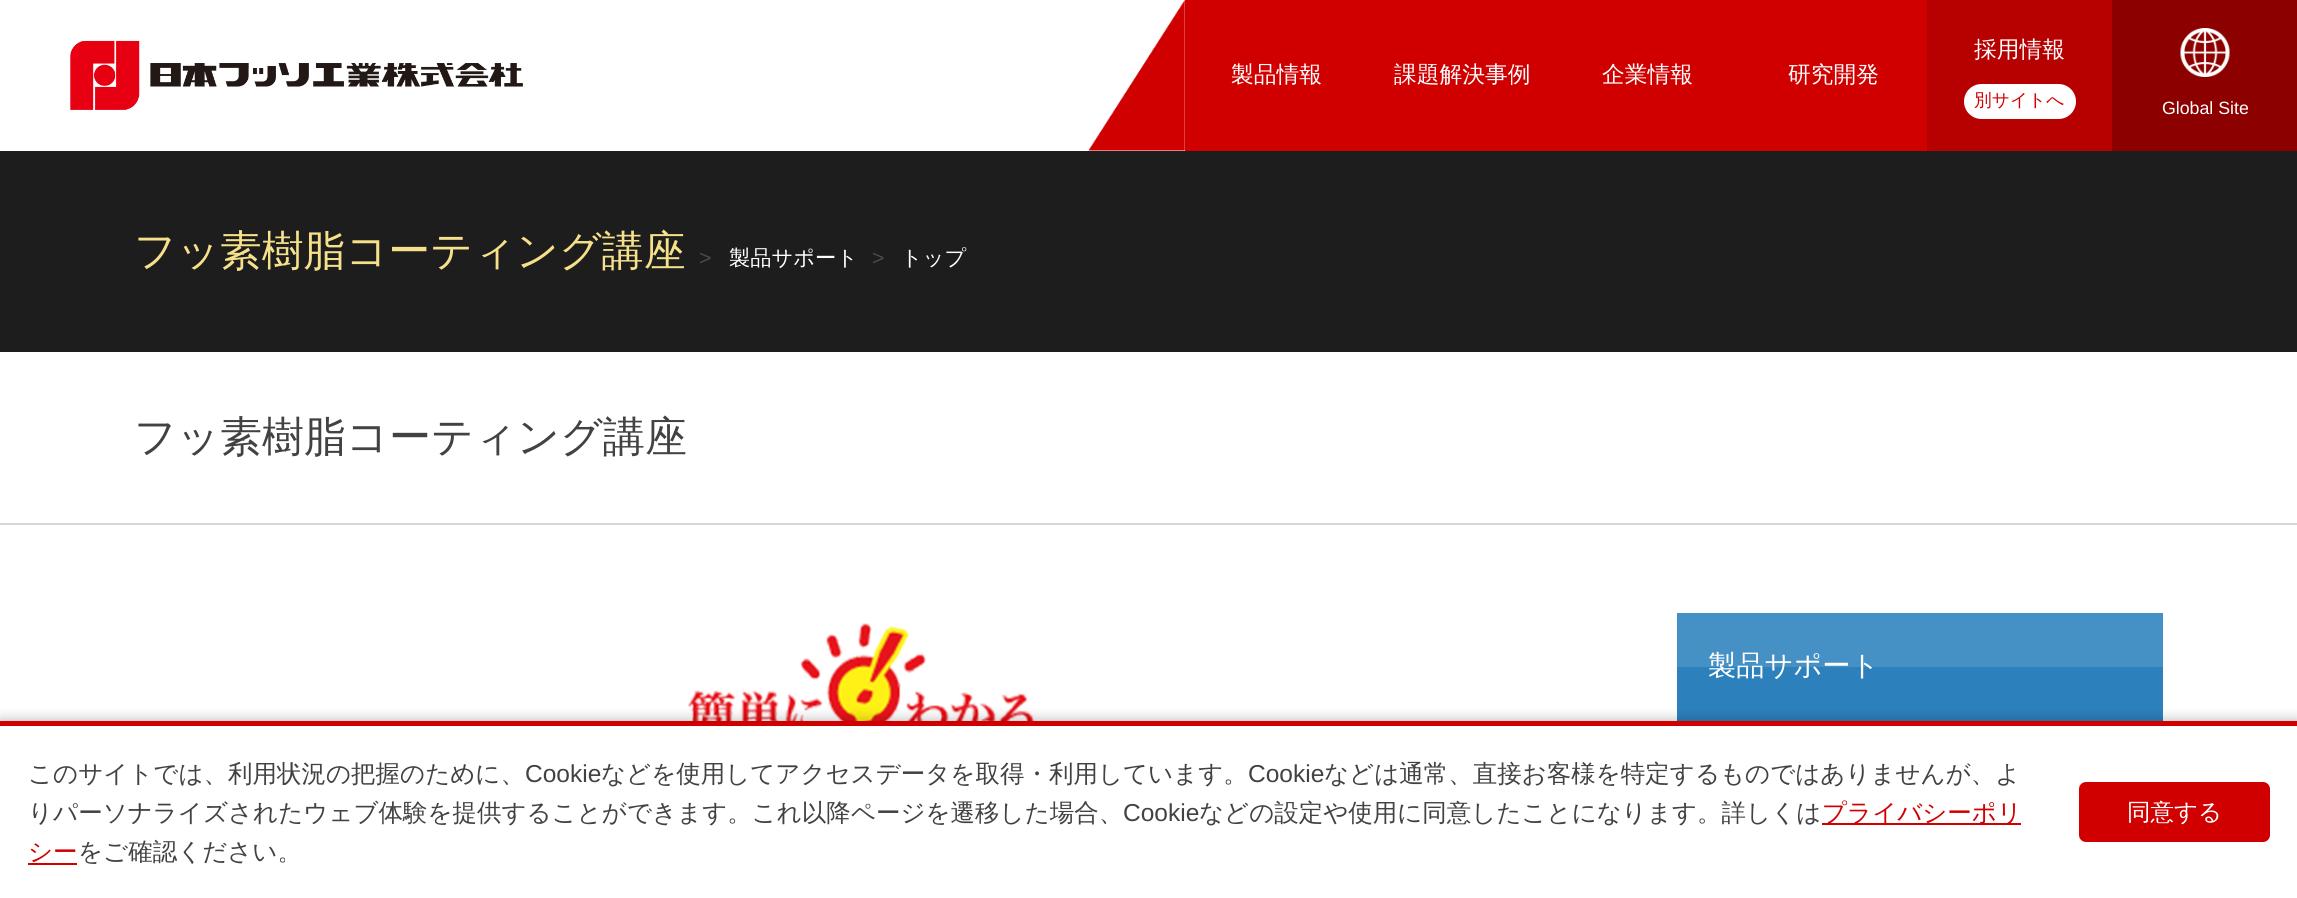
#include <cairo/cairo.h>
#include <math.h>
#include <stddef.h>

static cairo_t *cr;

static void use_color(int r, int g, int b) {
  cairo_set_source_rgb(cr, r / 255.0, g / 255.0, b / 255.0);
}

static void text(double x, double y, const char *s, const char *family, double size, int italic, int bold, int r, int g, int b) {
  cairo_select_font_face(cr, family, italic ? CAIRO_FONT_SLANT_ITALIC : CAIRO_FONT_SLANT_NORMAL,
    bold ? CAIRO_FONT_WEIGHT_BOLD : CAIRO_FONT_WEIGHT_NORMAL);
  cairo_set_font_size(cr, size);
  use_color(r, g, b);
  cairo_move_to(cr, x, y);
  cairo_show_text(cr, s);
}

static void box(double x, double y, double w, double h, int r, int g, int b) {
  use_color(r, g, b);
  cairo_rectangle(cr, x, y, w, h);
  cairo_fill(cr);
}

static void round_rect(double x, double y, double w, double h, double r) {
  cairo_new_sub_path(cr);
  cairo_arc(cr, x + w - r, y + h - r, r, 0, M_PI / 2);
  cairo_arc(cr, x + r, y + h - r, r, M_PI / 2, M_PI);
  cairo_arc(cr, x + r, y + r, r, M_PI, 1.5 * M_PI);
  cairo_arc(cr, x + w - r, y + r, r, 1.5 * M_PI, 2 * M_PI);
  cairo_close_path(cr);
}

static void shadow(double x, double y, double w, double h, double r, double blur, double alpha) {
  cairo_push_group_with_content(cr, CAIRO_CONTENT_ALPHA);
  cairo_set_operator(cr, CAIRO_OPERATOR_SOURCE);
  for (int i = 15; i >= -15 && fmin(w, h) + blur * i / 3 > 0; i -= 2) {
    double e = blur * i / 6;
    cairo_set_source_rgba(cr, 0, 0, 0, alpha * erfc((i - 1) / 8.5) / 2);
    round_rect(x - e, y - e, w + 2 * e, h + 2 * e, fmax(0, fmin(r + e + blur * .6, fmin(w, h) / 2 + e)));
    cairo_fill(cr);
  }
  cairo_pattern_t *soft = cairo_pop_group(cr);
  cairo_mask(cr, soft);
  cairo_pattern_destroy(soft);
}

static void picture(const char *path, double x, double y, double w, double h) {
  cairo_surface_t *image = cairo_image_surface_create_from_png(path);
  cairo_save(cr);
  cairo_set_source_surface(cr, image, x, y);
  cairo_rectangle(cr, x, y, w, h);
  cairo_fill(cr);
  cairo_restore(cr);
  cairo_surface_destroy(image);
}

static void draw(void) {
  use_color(255, 255, 255);
  cairo_paint(cr);
  picture("img_01.png", 70, 40, 453, 70);
  picture("img_02.png", 1088, 0, 97, 151);
  box(1185, 0, 742, 151, 208, 0, 0);
  box(1927, 0, 185, 151, 183, 0, 0);
  use_color(255, 255, 255);
  round_rect(1964, 84, 112, 35, 17.5);
  cairo_fill(cr);
  box(2112, 0, 185, 151, 141, 0, 0);
  picture("img_03.png", 2180, 28, 50, 49);
  box(0, 151, 2297, 201, 29, 29, 29);
  box(0, 523, 2297, 2, 214, 214, 214);
  picture("img_04.png", 677, 623, 360, 98);
  box(1677, 667, 486, 54, 44, 129, 188);
  box(1677, 613, 486, 54, 69, 144, 196);
  use_color(0, 0, 0);
  shadow(0, 721, 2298, 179, 0, 7, 0.3);
  box(0, 726, 2297, 172, 255, 255, 255);
  box(0, 721, 2297, 5, 208, 0, 0);
  box(1822, 823, 199, 2, 208, 0, 0);
  box(28, 863, 49, 2, 208, 0, 0);
  round_rect(2079, 782, 191, 60, 7);
  cairo_fill(cr);
  text(1231, 82, "製品情報", "WenQuanYi Zen Hei Medium", 22.75, 0, 0, 255, 255, 255);
  text(1394, 82, "課題解決事例", "WenQuanYi Zen Hei Medium", 22.75, 0, 0, 255, 255, 255);
  text(1602, 82, "企業情報", "WenQuanYi Zen Hei Medium", 22.75, 0, 0, 255, 255, 255);
  text(1788, 82, "研究開発", "WenQuanYi Zen Hei Medium", 22.75, 0, 0, 255, 255, 255);
  text(1974, 57, "採用情報", "WenQuanYi Zen Hei Medium", 22.75, 0, 0, 255, 255, 255);
  text(1974, 106, "別サイトへ", "WenQuanYi Zen Hei Medium", 17.75, 0, 0, 208, 0, 0);
  text(2162, 114, "Global Site", "Liberation Sans", 17.75, 0, 0, 255, 255, 255);
  text(134, 265, "フッ素樹脂コーティング講座", "WenQuanYi Zen Hei Medium", 41.9, 0, 0, 246, 224, 138);
  text(699, 265, ">", "Liberation Sans", 21.25, 0, 0, 74, 74, 74);
  text(729, 265, "製品サポート", "WenQuanYi Zen Hei Medium", 21.25, 0, 0, 255, 255, 255);
  text(872, 265, ">", "Liberation Sans", 21.25, 0, 0, 74, 74, 74);
  text(901, 265, "トップ", "WenQuanYi Zen Hei Medium", 21.25, 0, 0, 255, 255, 255);
  text(134, 451, "フッ素樹脂コーティング講座", "WenQuanYi Zen Hei Medium", 42, 0, 0, 66, 66, 66);
  text(1708, 675, "製品サポート", "WenQuanYi Zen Hei Medium", 28.25, 0, 0, 255, 255, 255);
  text(28, 782, "このサイトでは、利用状況の把握のために、", "WenQuanYi Zen Hei Medium", 24.5, 0, 0, 66, 66, 66);
  text(525, 782, "Cookie", "Liberation Sans", 24.5, 0, 0, 66, 66, 66);
  text(601, 782, "などを使用してアクセスデータを取得・利用しています。", "WenQuanYi Zen Hei Medium", 24.5, 0, 0, 66, 66, 66);
  text(1248, 782, "Cookie", "Liberation Sans", 24.5, 0, 0, 66, 66, 66);
  text(1324, 782, "などは通常、直接お客様を特定するものではありませんが、よ", "WenQuanYi Zen Hei Medium", 24.5, 0, 0, 66, 66, 66);
  text(28, 821, "りパーソナライズされたウェブ体験を提供することができます。これ以降ページを遷移した場合、", "WenQuanYi Zen Hei Medium", 24.5, 0, 0, 66, 66, 66);
  text(1123, 821, "Cookie", "Liberation Sans", 24.5, 0, 0, 66, 66, 66);
  text(1199, 821, "などの設定や使用に同意したことになります。詳しくは", "WenQuanYi Zen Hei Medium", 24.5, 0, 0, 66, 66, 66);
  text(1822, 821, "プライバシーポリ", "WenQuanYi Zen Hei Medium", 24.5, 0, 0, 208, 0, 0);
  text(28, 860, "シー", "WenQuanYi Zen Hei Medium", 24.5, 0, 0, 208, 0, 0);
  text(78, 860, "をご確認ください。", "WenQuanYi Zen Hei Medium", 24.5, 0, 0, 66, 66, 66);
  text(2127, 820, "同意する", "WenQuanYi Zen Hei Medium", 23.5, 0, 0, 255, 255, 255);
}

int main(void) {
  cairo_surface_t *surface = cairo_image_surface_create(CAIRO_FORMAT_RGB24, 2297, 898);
  cr = cairo_create(surface);
  cairo_font_options_t *options = cairo_font_options_create();
  cairo_font_options_set_hint_metrics(options, CAIRO_HINT_METRICS_OFF);
  cairo_font_options_set_hint_style(options, CAIRO_HINT_STYLE_NONE);
  cairo_set_font_options(cr, options);
  cairo_set_miter_limit(cr, 4);
  draw();
  cairo_surface_write_to_png(surface, "out.png");
  cairo_font_options_destroy(options);
  cairo_destroy(cr);
  cairo_surface_destroy(surface);
  return 0;
}
